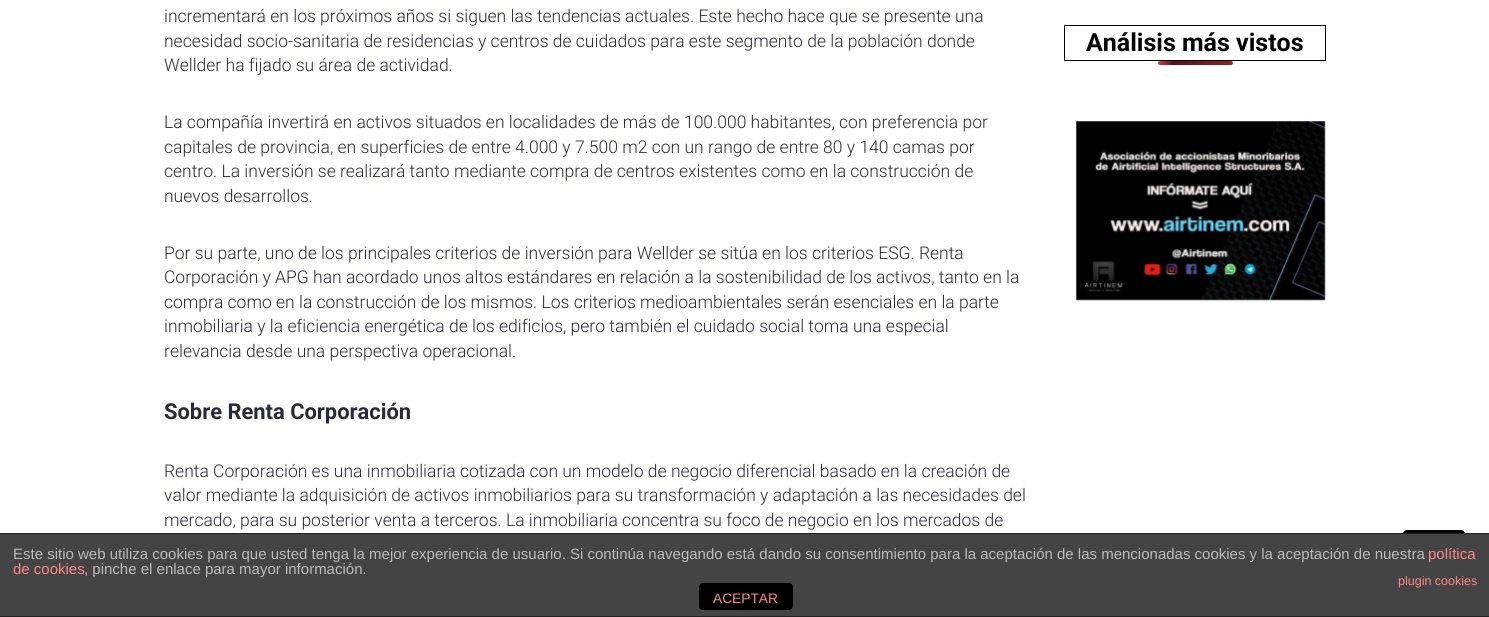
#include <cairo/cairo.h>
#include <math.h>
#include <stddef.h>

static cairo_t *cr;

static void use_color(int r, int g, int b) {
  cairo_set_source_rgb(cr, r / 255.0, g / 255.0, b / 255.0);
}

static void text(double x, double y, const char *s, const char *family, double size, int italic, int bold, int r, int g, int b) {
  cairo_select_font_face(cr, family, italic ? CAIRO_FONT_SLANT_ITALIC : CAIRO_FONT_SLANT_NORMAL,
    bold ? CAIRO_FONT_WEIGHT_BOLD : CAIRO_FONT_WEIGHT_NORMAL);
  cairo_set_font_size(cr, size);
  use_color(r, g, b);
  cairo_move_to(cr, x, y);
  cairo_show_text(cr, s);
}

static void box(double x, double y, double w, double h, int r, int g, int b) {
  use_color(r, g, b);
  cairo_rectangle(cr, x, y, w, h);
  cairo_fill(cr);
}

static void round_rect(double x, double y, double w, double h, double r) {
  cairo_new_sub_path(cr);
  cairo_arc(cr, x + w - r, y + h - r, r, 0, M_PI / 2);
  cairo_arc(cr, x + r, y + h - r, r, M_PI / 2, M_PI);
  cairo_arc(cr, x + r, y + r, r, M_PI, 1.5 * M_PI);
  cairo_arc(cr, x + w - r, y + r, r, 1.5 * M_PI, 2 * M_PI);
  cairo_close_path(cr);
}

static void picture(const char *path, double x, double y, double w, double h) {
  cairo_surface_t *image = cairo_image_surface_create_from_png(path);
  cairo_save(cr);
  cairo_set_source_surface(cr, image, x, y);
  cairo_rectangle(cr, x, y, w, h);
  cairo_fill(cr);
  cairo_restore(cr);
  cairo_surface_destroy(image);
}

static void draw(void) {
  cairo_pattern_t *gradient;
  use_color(255, 255, 255);
  cairo_paint(cr);
  cairo_rectangle(cr, 1064.5, 25.5, 261, 35);
  use_color(0, 0, 0);
  cairo_set_line_width(cr, 1);
  cairo_stroke(cr);
  gradient = cairo_pattern_create_linear(1158, 63, 1308, 63);
  cairo_pattern_add_color_stop_rgba(gradient, 0, 0.867, 0.216, 0.216, 1);
  cairo_pattern_add_color_stop_rgba(gradient, 0.1, 0.341, 0.075, 0.075, 1);
  cairo_pattern_add_color_stop_rgba(gradient, 1, 0.867, 0.216, 0.216, 1);
  cairo_set_source(cr, gradient);
  cairo_pattern_destroy(gradient);
  round_rect(1158, 61, 75, 4, 2);
  cairo_fill(cr);
  picture("img_01.png", 1076, 121, 250, 180);
  use_color(0, 0, 0);
  round_rect(1403, 530, 62, 63, 4);
  cairo_fill(cr);
  box(0, 534, 1489, 82, 68, 68, 68);
  box(0, 533, 1489, 1, 34, 34, 34);
  box(0, 616, 1489, 1, 34, 34, 34);
  use_color(0, 0, 0);
  round_rect(699, 583, 94, 27, 4);
  cairo_fill(cr);
  text(164, 22, "incrementará en los próximos años si siguen las tendencias actuales. Este hecho hace que se presente una", "Roboto Light", 17.5, 0, 0, 41, 41, 58);
  text(164, 47, "necesidad socio-sanitaria de residencias y centros de cuidados para este segmento de la población donde", "Roboto Light", 17.5, 0, 0, 41, 41, 58);
  text(164, 71, "Wellder ha fijado su área de actividad.", "Roboto Light", 17.5, 0, 0, 41, 41, 58);
  text(164, 128, "La compañía invertirá en activos situados en localidades de más de 100.000 habitantes, con preferencia por", "Roboto Light", 17.5, 0, 0, 41, 41, 58);
  text(164, 153, "capitales de provincia, en superficies de entre 4.000 y 7.500 m2 con un rango de entre 80 y 140 camas por", "Roboto Light", 17.5, 0, 0, 41, 41, 58);
  text(164, 177, "centro. La inversión se realizará tanto mediante compra de centros existentes como en la construcción de", "Roboto Light", 17.5, 0, 0, 41, 41, 58);
  text(164, 202, "nuevos desarrollos.", "Roboto Light", 17.5, 0, 0, 41, 41, 58);
  text(164, 259, "Por su parte, uno de los principales criterios de inversión para Wellder se sitúa en los criterios ESG. Renta", "Roboto Light", 17.5, 0, 0, 41, 41, 58);
  text(164, 283, "Corporación y APG han acordado unos altos estándares en relación a la sostenibilidad de los activos, tanto en la", "Roboto Light", 17.5, 0, 0, 41, 41, 58);
  text(164, 308, "compra como en la construcción de los mismos. Los criterios medioambientales serán esenciales en la parte", "Roboto Light", 17.5, 0, 0, 41, 41, 58);
  text(164, 332, "inmobiliaria y la eficiencia energética de los edificios, pero también el cuidado social toma una especial", "Roboto Light", 17.5, 0, 0, 41, 41, 58);
  text(164, 357, "relevancia desde una perspectiva operacional.", "Roboto Light", 17.5, 0, 0, 41, 41, 58);
  text(164, 419, "Sobre Renta Corporación", "Roboto", 21.9, 0, 1, 41, 41, 58);
  text(164, 477, "Renta Corporación es una inmobiliaria cotizada con un modelo de negocio diferencial basado en la creación de", "Roboto Light", 17.5, 0, 0, 41, 41, 58);
  text(164, 501, "valor mediante la adquisición de activos inmobiliarios para su transformación y adaptación a las necesidades del", "Roboto Light", 17.5, 0, 0, 41, 41, 58);
  text(164, 526, "mercado, para su posterior venta a terceros. La inmobiliaria concentra su foco de negocio en los mercados de", "Roboto Light", 17.5, 0, 0, 41, 41, 58);
  text(1086, 51, "Análisis más vistos", "Roboto", 25, 0, 1, 0, 0, 0);
  text(13, 559, "Este sitio web utiliza cookies para que usted tenga la mejor experiencia de usuario. Si continúa navegando está dando su consentimiento para la aceptación de las mencionadas cookies y la aceptación de nuestra", "Liberation Sans", 15, 0, 0, 187, 187, 187);
  text(1428, 559, "política", "Liberation Sans", 15, 0, 0, 255, 136, 136);
  text(13, 574, "de cookies", "Liberation Sans", 15, 0, 0, 255, 136, 136);
  text(84, 574, ", pinche el enlace para mayor información.", "Liberation Sans", 15, 0, 0, 187, 187, 187);
  text(1398, 585, "plugin cookies", "Liberation Sans", 12.5, 0, 0, 255, 136, 136);
  text(713, 603, "ACEPTAR", "Liberation Sans", 13.75, 0, 0, 255, 136, 136);
}

int main(void) {
  cairo_surface_t *surface = cairo_image_surface_create(CAIRO_FORMAT_RGB24, 1489, 617);
  cr = cairo_create(surface);
  cairo_font_options_t *options = cairo_font_options_create();
  cairo_font_options_set_hint_metrics(options, CAIRO_HINT_METRICS_OFF);
  cairo_font_options_set_hint_style(options, CAIRO_HINT_STYLE_NONE);
  cairo_set_font_options(cr, options);
  cairo_set_miter_limit(cr, 4);
  draw();
  cairo_surface_write_to_png(surface, "out.png");
  cairo_font_options_destroy(options);
  cairo_destroy(cr);
  cairo_surface_destroy(surface);
  return 0;
}
